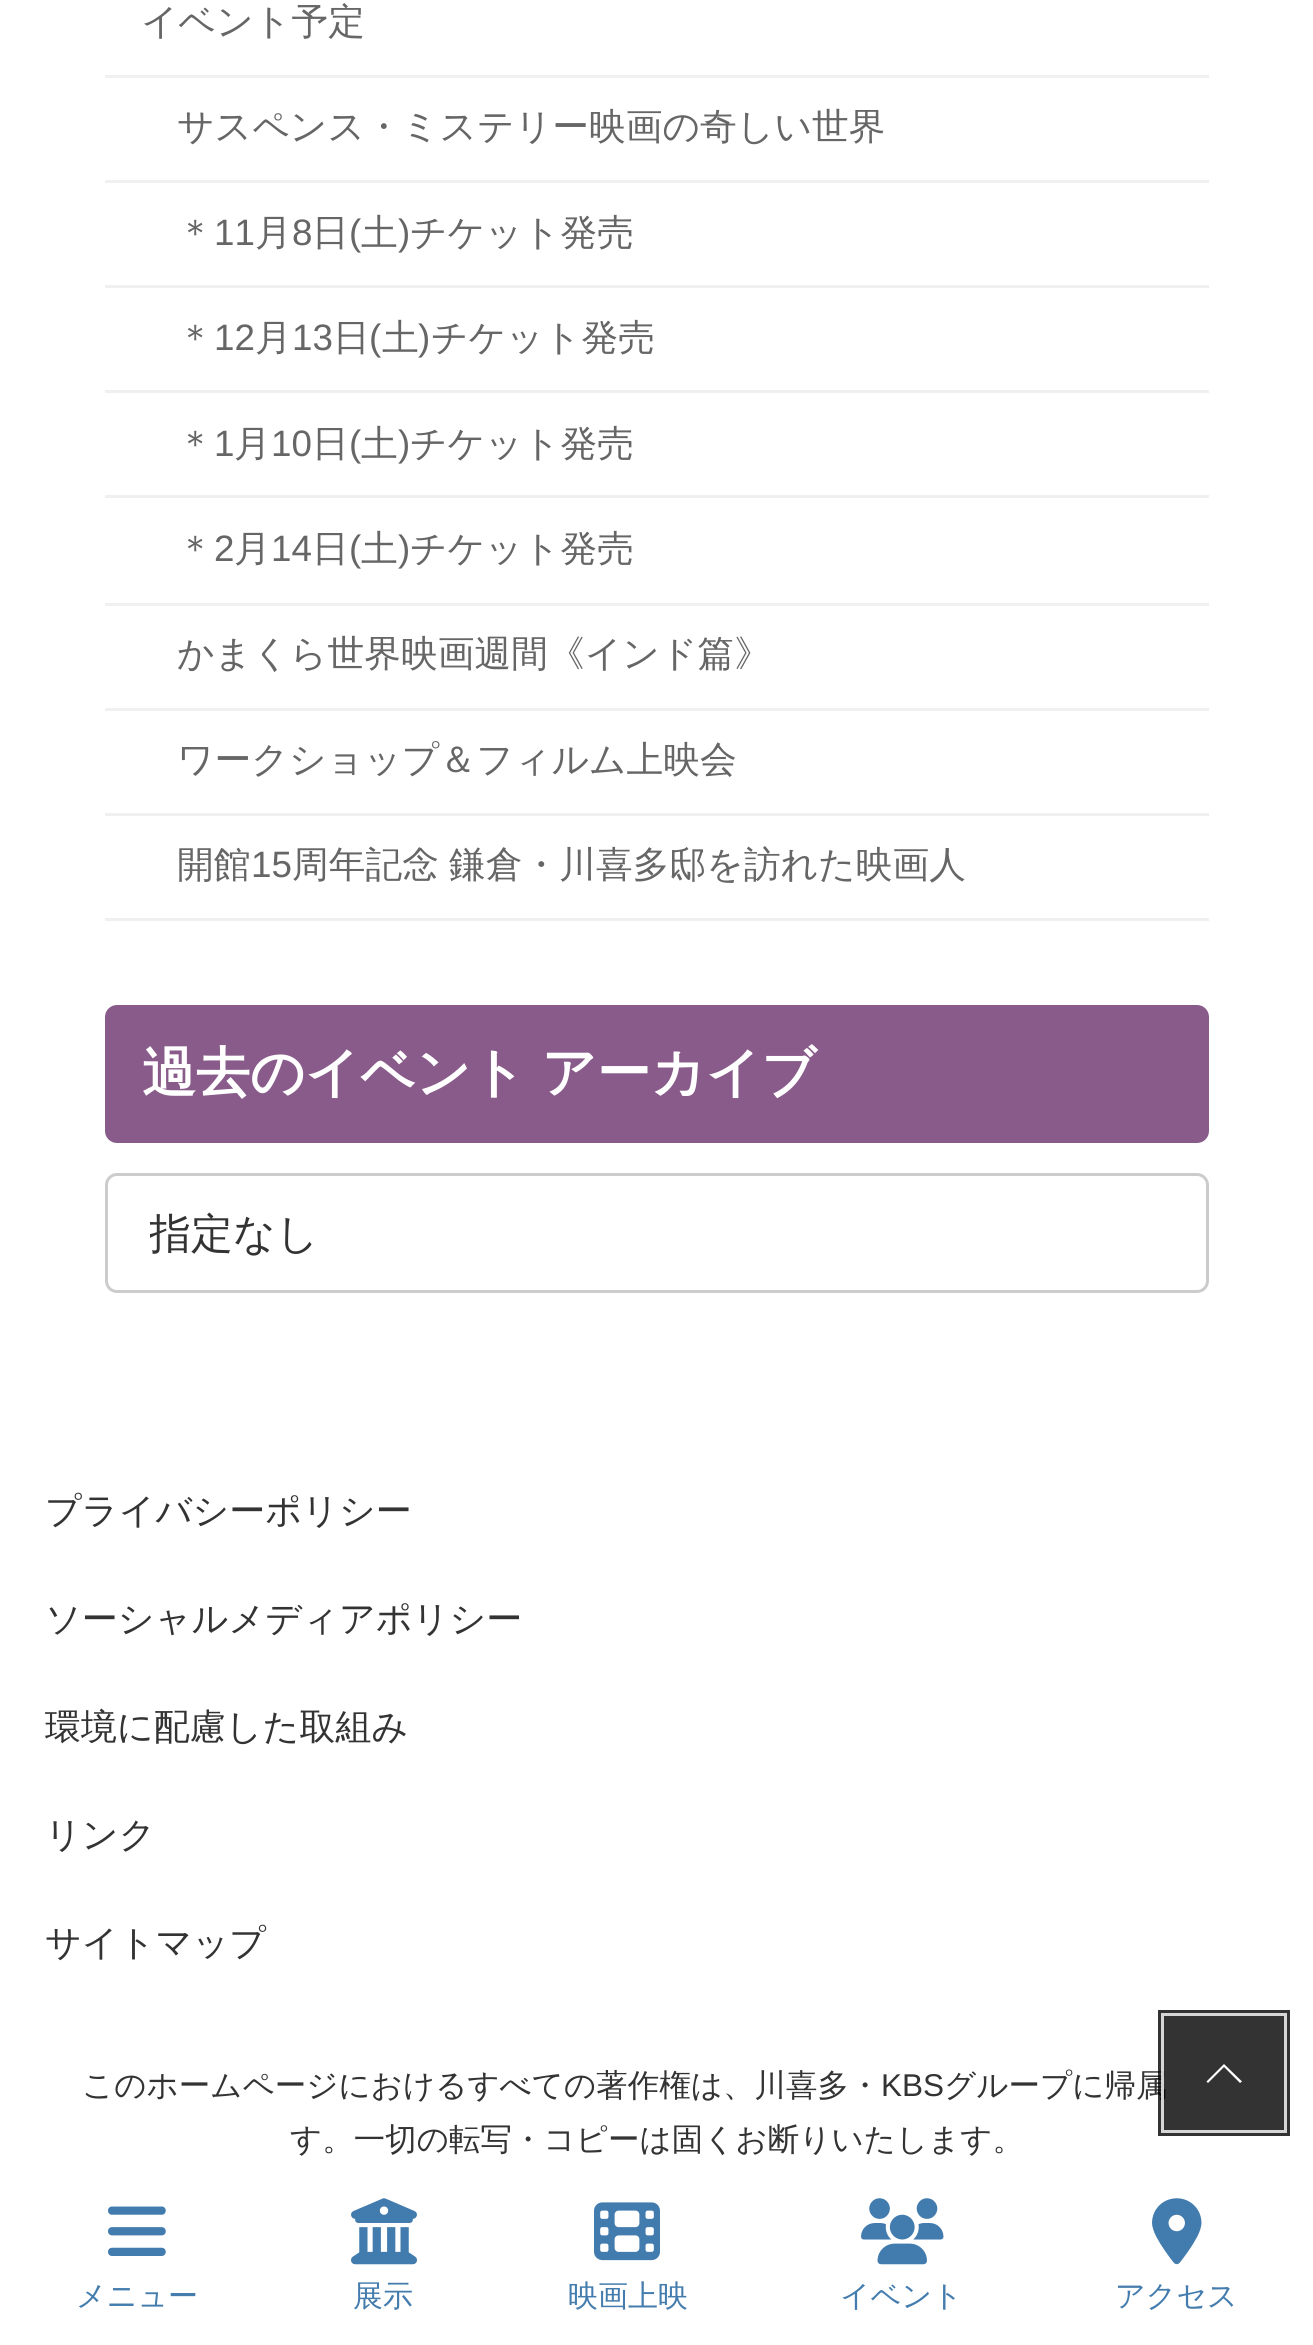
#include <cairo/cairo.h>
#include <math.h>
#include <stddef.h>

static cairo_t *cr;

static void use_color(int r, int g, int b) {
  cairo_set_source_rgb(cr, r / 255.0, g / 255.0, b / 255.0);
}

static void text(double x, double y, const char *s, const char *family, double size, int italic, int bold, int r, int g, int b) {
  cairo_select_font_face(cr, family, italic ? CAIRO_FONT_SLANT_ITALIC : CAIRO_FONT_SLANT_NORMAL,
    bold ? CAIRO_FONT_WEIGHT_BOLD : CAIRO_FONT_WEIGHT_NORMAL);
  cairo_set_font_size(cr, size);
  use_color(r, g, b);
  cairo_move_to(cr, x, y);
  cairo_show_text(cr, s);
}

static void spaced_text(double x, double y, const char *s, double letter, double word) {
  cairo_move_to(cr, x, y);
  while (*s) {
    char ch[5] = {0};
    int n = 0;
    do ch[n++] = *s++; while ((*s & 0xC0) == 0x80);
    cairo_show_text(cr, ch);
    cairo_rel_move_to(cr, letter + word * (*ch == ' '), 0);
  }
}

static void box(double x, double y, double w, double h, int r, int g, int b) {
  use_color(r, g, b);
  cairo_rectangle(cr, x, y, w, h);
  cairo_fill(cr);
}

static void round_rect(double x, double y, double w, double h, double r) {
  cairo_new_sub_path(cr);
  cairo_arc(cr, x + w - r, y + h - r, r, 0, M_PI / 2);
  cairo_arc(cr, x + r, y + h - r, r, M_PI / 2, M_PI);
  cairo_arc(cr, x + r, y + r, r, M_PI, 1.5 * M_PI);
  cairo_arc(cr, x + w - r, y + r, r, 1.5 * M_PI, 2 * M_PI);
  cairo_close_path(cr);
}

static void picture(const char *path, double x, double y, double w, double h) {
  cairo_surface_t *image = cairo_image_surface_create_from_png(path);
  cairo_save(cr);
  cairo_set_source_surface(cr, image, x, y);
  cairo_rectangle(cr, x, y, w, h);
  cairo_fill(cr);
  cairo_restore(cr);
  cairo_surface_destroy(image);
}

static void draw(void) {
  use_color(255, 255, 255);
  cairo_paint(cr);
  box(105, 75, 1104, 3, 240, 240, 240);
  box(105, 180, 1104, 3, 240, 240, 240);
  box(105, 285, 1104, 3, 240, 240, 240);
  box(105, 390, 1104, 3, 240, 240, 240);
  box(105, 495, 1104, 3, 240, 240, 240);
  box(105, 603, 1104, 3, 240, 240, 240);
  box(105, 708, 1104, 3, 240, 240, 240);
  box(105, 813, 1104, 3, 240, 240, 240);
  box(105, 918, 1104, 3, 240, 240, 240);
  use_color(137, 91, 138);
  round_rect(105, 1005, 1104, 138, 12);
  cairo_fill(cr);
  round_rect(106.5, 1174.5, 1101, 117, 10.5);
  use_color(204, 204, 204);
  cairo_set_line_width(cr, 3);
  cairo_stroke(cr);
  picture("img_01.png", 108, 2206, 58, 50);
  picture("img_02.png", 351, 2198, 66, 67);
  picture("img_03.png", 594, 2202, 66, 59);
  picture("img_04.png", 861, 2198, 83, 67);
  picture("img_05.png", 1152, 2198, 50, 67);
  text(141, 34, "イベント予定", "WenQuanYi Zen Hei Medium", 36.75, 0, 0, 102, 102, 102);
  text(177, 139, "サスペンス・ミステリー映画の奇しい世界", "WenQuanYi Zen Hei Medium", 36.75, 0, 0, 102, 102, 102);
  text(177, 245, "＊", "WenQuanYi Zen Hei Medium", 36.75, 0, 0, 102, 102, 102);
  text(214, 245, "11", "Liberation Sans", 36.75, 0, 0, 102, 102, 102);
  text(255, 245, "月", "WenQuanYi Zen Hei Medium", 36.75, 0, 0, 102, 102, 102);
  text(292, 245, "8", "Liberation Sans", 36.75, 0, 0, 102, 102, 102);
  text(312, 245, "日", "WenQuanYi Zen Hei Medium", 36.75, 0, 0, 102, 102, 102);
  text(349, 245, "(", "Liberation Sans", 36.75, 0, 0, 102, 102, 102);
  text(361, 245, "土", "WenQuanYi Zen Hei Medium", 36.75, 0, 0, 102, 102, 102);
  text(398, 245, ")", "Liberation Sans", 36.75, 0, 0, 102, 102, 102);
  text(410, 245, "チケット発売", "WenQuanYi Zen Hei Medium", 36.75, 0, 0, 102, 102, 102);
  text(177, 350, "＊", "WenQuanYi Zen Hei Medium", 36.75, 0, 0, 102, 102, 102);
  text(214, 350, "12", "Liberation Sans", 36.75, 0, 0, 102, 102, 102);
  text(255, 350, "月", "WenQuanYi Zen Hei Medium", 36.75, 0, 0, 102, 102, 102);
  text(292, 350, "13", "Liberation Sans", 36.75, 0, 0, 102, 102, 102);
  text(333, 350, "日", "WenQuanYi Zen Hei Medium", 36.75, 0, 0, 102, 102, 102);
  text(369, 350, "(", "Liberation Sans", 36.75, 0, 0, 102, 102, 102);
  text(382, 350, "土", "WenQuanYi Zen Hei Medium", 36.75, 0, 0, 102, 102, 102);
  text(418, 350, ")", "Liberation Sans", 36.75, 0, 0, 102, 102, 102);
  text(431, 350, "チケット発売", "WenQuanYi Zen Hei Medium", 36.75, 0, 0, 102, 102, 102);
  text(177, 456, "＊", "WenQuanYi Zen Hei Medium", 36.75, 0, 0, 102, 102, 102);
  text(214, 456, "1", "Liberation Sans", 36.75, 0, 0, 102, 102, 102);
  text(234, 456, "月", "WenQuanYi Zen Hei Medium", 36.75, 0, 0, 102, 102, 102);
  text(271, 456, "10", "Liberation Sans", 36.75, 0, 0, 102, 102, 102);
  text(312, 456, "日", "WenQuanYi Zen Hei Medium", 36.75, 0, 0, 102, 102, 102);
  text(349, 456, "(", "Liberation Sans", 36.75, 0, 0, 102, 102, 102);
  text(361, 456, "土", "WenQuanYi Zen Hei Medium", 36.75, 0, 0, 102, 102, 102);
  text(398, 456, ")", "Liberation Sans", 36.75, 0, 0, 102, 102, 102);
  text(410, 456, "チケット発売", "WenQuanYi Zen Hei Medium", 36.75, 0, 0, 102, 102, 102);
  text(177, 561, "＊", "WenQuanYi Zen Hei Medium", 36.75, 0, 0, 102, 102, 102);
  text(214, 561, "2", "Liberation Sans", 36.75, 0, 0, 102, 102, 102);
  text(234, 561, "月", "WenQuanYi Zen Hei Medium", 36.75, 0, 0, 102, 102, 102);
  text(271, 561, "14", "Liberation Sans", 36.75, 0, 0, 102, 102, 102);
  text(312, 561, "日", "WenQuanYi Zen Hei Medium", 36.75, 0, 0, 102, 102, 102);
  text(349, 561, "(", "Liberation Sans", 36.75, 0, 0, 102, 102, 102);
  text(361, 561, "土", "WenQuanYi Zen Hei Medium", 36.75, 0, 0, 102, 102, 102);
  text(398, 561, ")", "Liberation Sans", 36.75, 0, 0, 102, 102, 102);
  text(410, 561, "チケット発売", "WenQuanYi Zen Hei Medium", 36.75, 0, 0, 102, 102, 102);
  text(177, 666, "かまくら世界映画週間《インド篇》", "WenQuanYi Zen Hei Medium", 36.75, 0, 0, 102, 102, 102);
  text(177, 772, "ワークショップ＆フィルム上映会", "WenQuanYi Zen Hei Medium", 36.75, 0, 0, 102, 102, 102);
  text(177, 877, "開館", "WenQuanYi Zen Hei Medium", 36.75, 0, 0, 102, 102, 102);
  text(251, 877, "15", "Liberation Sans", 36.75, 0, 0, 102, 102, 102);
  cairo_select_font_face(cr, "WenQuanYi Zen Hei Medium", CAIRO_FONT_SLANT_NORMAL, CAIRO_FONT_WEIGHT_NORMAL);
  spaced_text(292, 877, "周年記念 鎌倉・川喜多邸を訪れた映画人", 0, -1);
  cairo_select_font_face(cr, "WenQuanYi Zen Hei", CAIRO_FONT_SLANT_NORMAL, CAIRO_FONT_WEIGHT_BOLD);
  cairo_set_font_size(cr, 54);
  use_color(255, 255, 255);
  spaced_text(142, 1091, "過去のイベント アーカイブ", 0, -1);
  cairo_save(cr);
  cairo_rectangle(cr, 150, 1209, 1014, 48);
  cairo_clip(cr);
  text(149, 1248, "指定なし", "WenQuanYi Zen Hei Medium", 42, 0, 0, 51, 51, 51);
  cairo_restore(cr);
  text(45, 1523, "プライバシーポリシー", "WenQuanYi Zen Hei Medium", 36, 0, 0, 51, 51, 51);
  text(45, 1631, "ソーシャルメディアポリシー", "WenQuanYi Zen Hei Medium", 36, 0, 0, 51, 51, 51);
  text(45, 1739, "環境に配慮した取組み", "WenQuanYi Zen Hei Medium", 36, 0, 0, 51, 51, 51);
  text(45, 1847, "リンク", "WenQuanYi Zen Hei Medium", 36, 0, 0, 51, 51, 51);
  text(45, 1955, "サイトマップ", "WenQuanYi Zen Hei Medium", 36, 0, 0, 51, 51, 51);
  text(82, 2096, "このホームページにおけるすべての著作権は、川喜多・", "WenQuanYi Zen Hei Medium", 31.5, 0, 0, 51, 51, 51);
  text(881, 2096, "KBS", "Liberation Sans", 31.5, 0, 0, 51, 51, 51);
  text(944, 2096, "グループに帰属", "WenQuanYi Zen Hei Medium", 31.5, 0, 0, 51, 51, 51);
  text(290, 2150, "す。一切の転写・コピーは固くお断りいたします。", "WenQuanYi Zen Hei Medium", 31.5, 0, 0, 51, 51, 51);
  cairo_rectangle(cr, 1161, 2013, 126, 120);
  cairo_set_source_rgba(cr, 0, 0, 0, 0.8);
  cairo_set_line_width(cr, 6);
  cairo_stroke(cr);
  cairo_rectangle(cr, 1162.5, 2014.5, 123, 117);
  cairo_set_source_rgba(cr, 1, 1, 1, 0.8);
  cairo_set_line_width(cr, 3);
  cairo_stroke(cr);
  cairo_set_source_rgba(cr, 0, 0, 0, 0.8);
  cairo_rectangle(cr, 1164, 2016, 120, 114);
  cairo_fill(cr);
  use_color(255, 255, 255);
  cairo_new_path(cr);
  cairo_move_to(cr, 1242, 2081.5);
  cairo_line_to(cr, 1240, 2083);
  cairo_line_to(cr, 1224, 2067);
  cairo_line_to(cr, 1208, 2083);
  cairo_line_to(cr, 1206.5, 2081.5);
  cairo_line_to(cr, 1224, 2064);
  cairo_close_path(cr);
  cairo_fill(cr);
  text(76, 2306, "メニュー", "WenQuanYi Zen Hei Medium", 30, 0, 0, 67, 124, 173);
  text(353, 2306, "展示", "WenQuanYi Zen Hei Medium", 30, 0, 0, 67, 124, 173);
  text(568, 2306, "映画上映", "WenQuanYi Zen Hei Medium", 30, 0, 0, 67, 124, 173);
  text(840, 2306, "イベント", "WenQuanYi Zen Hei Medium", 30, 0, 0, 67, 124, 173);
  text(1115, 2306, "アクセス", "WenQuanYi Zen Hei Medium", 30, 0, 0, 67, 124, 173);
}

int main(void) {
  cairo_surface_t *surface = cairo_image_surface_create(CAIRO_FORMAT_RGB24, 1313, 2345);
  cr = cairo_create(surface);
  cairo_font_options_t *options = cairo_font_options_create();
  cairo_font_options_set_hint_metrics(options, CAIRO_HINT_METRICS_OFF);
  cairo_font_options_set_hint_style(options, CAIRO_HINT_STYLE_NONE);
  cairo_set_font_options(cr, options);
  cairo_set_miter_limit(cr, 4);
  draw();
  cairo_surface_write_to_png(surface, "out.png");
  cairo_font_options_destroy(options);
  cairo_destroy(cr);
  cairo_surface_destroy(surface);
  return 0;
}
